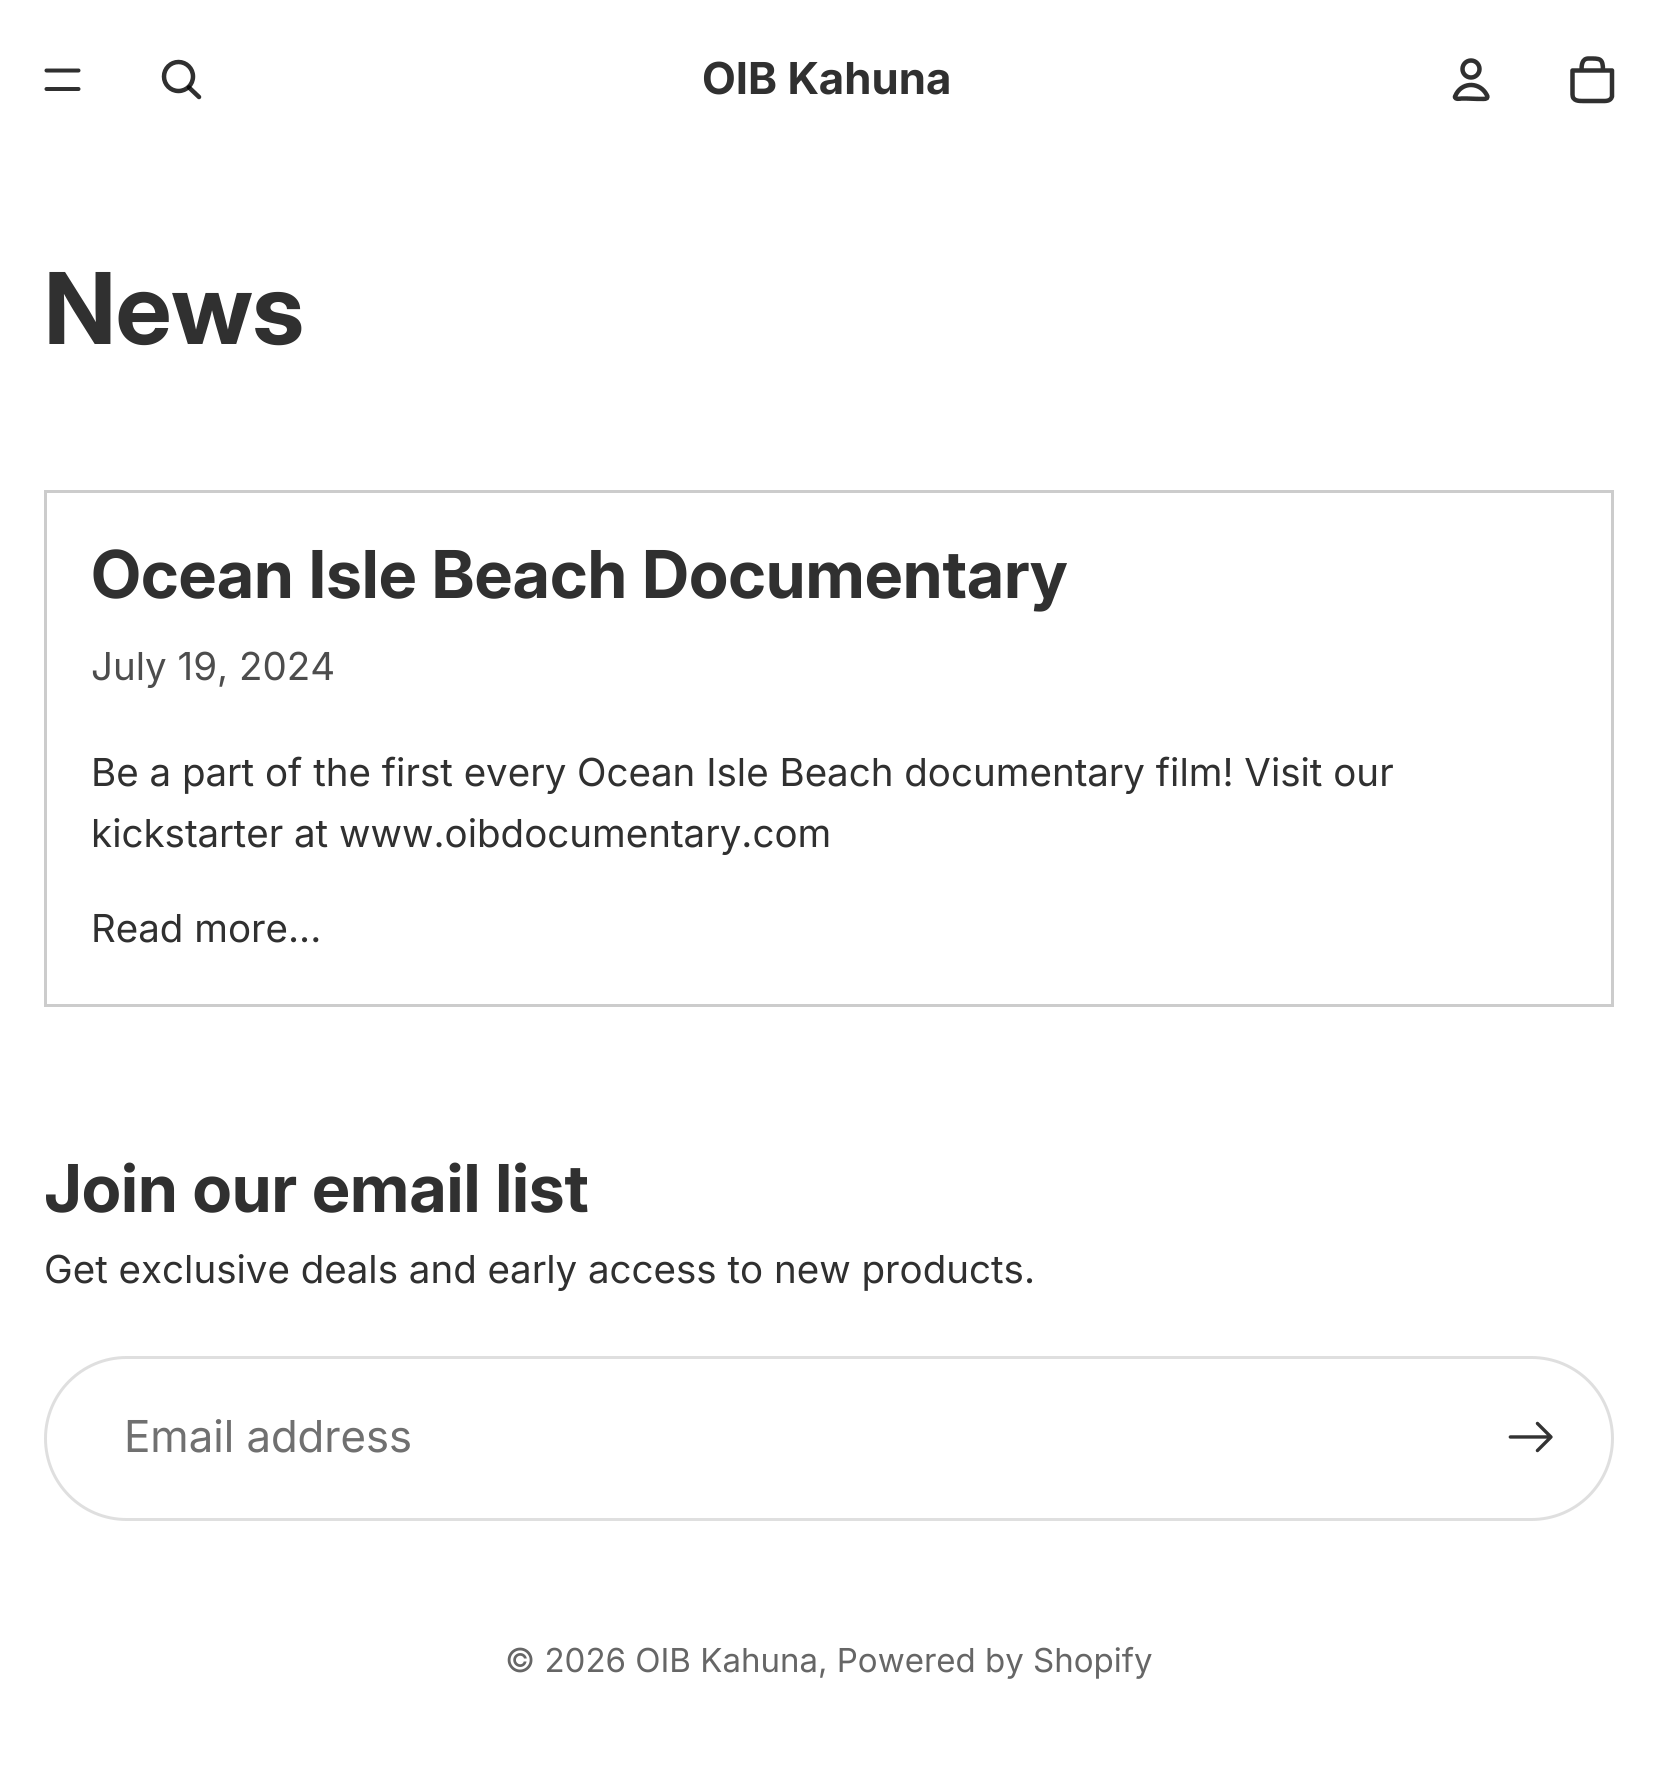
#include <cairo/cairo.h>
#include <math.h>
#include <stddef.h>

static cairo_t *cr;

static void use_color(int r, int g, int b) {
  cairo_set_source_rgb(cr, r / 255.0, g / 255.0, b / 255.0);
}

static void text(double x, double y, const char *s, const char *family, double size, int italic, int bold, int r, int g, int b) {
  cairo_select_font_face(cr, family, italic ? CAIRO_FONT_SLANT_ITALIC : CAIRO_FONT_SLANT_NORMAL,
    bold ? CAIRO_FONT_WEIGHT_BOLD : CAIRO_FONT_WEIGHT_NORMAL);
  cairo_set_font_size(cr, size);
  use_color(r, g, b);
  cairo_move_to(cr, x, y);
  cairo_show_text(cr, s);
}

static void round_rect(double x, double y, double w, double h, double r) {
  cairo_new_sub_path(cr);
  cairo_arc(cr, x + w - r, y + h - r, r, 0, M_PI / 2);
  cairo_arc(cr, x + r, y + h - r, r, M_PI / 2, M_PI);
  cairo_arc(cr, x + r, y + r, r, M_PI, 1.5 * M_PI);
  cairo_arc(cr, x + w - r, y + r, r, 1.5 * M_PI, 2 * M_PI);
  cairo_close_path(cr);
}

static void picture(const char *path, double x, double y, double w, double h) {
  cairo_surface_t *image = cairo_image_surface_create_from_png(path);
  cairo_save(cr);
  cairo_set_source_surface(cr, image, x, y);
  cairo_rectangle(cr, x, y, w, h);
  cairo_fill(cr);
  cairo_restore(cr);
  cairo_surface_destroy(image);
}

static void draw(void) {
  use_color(255, 255, 255);
  cairo_paint(cr);
  cairo_new_path(cr);
  cairo_move_to(cr, 46.5, 70.5);
  cairo_line_to(cr, 78.5, 70.5);
  cairo_move_to(cr, 46.5, 89);
  cairo_line_to(cr, 78.5, 89);
  use_color(48, 48, 48);
  cairo_set_line_width(cr, 4);
  cairo_set_line_cap(cr, CAIRO_LINE_CAP_ROUND);
  cairo_stroke(cr);
  cairo_arc(cr, 178.5, 76.5, 14.5, 0, 2 * M_PI);
  cairo_set_line_width(cr, 4.5);
  cairo_set_line_cap(cr, CAIRO_LINE_CAP_BUTT);
  cairo_stroke(cr);
  cairo_new_path(cr);
  cairo_move_to(cr, 189, 87.5);
  cairo_line_to(cr, 199, 97);
  cairo_set_source_rgba(cr, 0, 0, 0, 0.81);
  cairo_set_line_cap(cr, CAIRO_LINE_CAP_ROUND);
  cairo_set_line_join(cr, CAIRO_LINE_JOIN_ROUND);
  cairo_stroke(cr);
  cairo_arc(cr, 1471, 69, 8.5, 0, 2 * M_PI);
  use_color(48, 48, 48);
  cairo_set_line_cap(cr, CAIRO_LINE_CAP_BUTT);
  cairo_set_line_join(cr, CAIRO_LINE_JOIN_MITER);
  cairo_stroke(cr);
  cairo_new_path(cr);
  cairo_move_to(cr, 1456.5, 93.5);
  cairo_line_to(cr, 1455, 96.5);
  cairo_curve_to(cr, 1454.5, 100, 1461, 98.5, 1461.5, 98.5);
  cairo_line_to(cr, 1466.5, 98.5);
  cairo_curve_to(cr, 1469, 98.5, 1485.5, 99.5, 1486.5, 98.5);
  cairo_line_to(cr, 1487, 98);
  cairo_curve_to(cr, 1488, 96.5, 1487, 95.5, 1486.5, 94.5);
  cairo_curve_to(cr, 1480, 82.5, 1463.5, 81.5, 1456.5, 93.5);
  cairo_set_line_cap(cr, CAIRO_LINE_CAP_ROUND);
  cairo_set_line_join(cr, CAIRO_LINE_JOIN_ROUND);
  cairo_stroke(cr);
  cairo_new_path(cr);
  cairo_move_to(cr, 1572.5, 70.5);
  cairo_line_to(cr, 1612, 70.5);
  cairo_line_to(cr, 1612, 96.5);
  cairo_curve_to(cr, 1610.5, 101.5, 1605.5, 101, 1601.5, 101);
  cairo_line_to(cr, 1583, 101);
  cairo_curve_to(cr, 1578.5, 101, 1572.5, 101, 1572.5, 94.5);
  cairo_close_path(cr);
  cairo_move_to(cr, 1588.5, 58.5);
  cairo_curve_to(cr, 1600, 58.5, 1603, 58, 1603, 70.5);
  cairo_line_to(cr, 1581.5, 70.5);
  cairo_curve_to(cr, 1581.5, 65, 1582, 58.5, 1588.5, 58.5);
  cairo_stroke(cr);
  cairo_rectangle(cr, 45.5, 491.5, 1567, 514);
  use_color(204, 204, 204);
  cairo_set_line_width(cr, 3);
  cairo_set_line_cap(cr, CAIRO_LINE_CAP_BUTT);
  cairo_set_line_join(cr, CAIRO_LINE_JOIN_MITER);
  cairo_stroke(cr);
  round_rect(45.5, 1357.5, 1567, 162, 81);
  use_color(223, 223, 223);
  cairo_stroke(cr);
  picture("img_01.png", 1508, 1421, 45, 32);
  text(702, 94, "OIB Kahuna", "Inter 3", 44, 0, 1, 48, 48, 48);
  text(44, 344, "News", "Inter", 99, 0, 1, 48, 48, 48);
  text(91, 598, "Ocean Isle Beach Documentary", "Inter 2", 66, 0, 1, 48, 48, 48);
  text(91, 680, "July 19, 2024", "Inter", 38.5, 0, 0, 77, 77, 77);
  text(91, 786, "Be a part of the first every Ocean Isle Beach documentary film! Visit our", "Inter", 38.5, 0, 0, 48, 48, 48);
  text(91, 847, "kickstarter at www.oibdocumentary.com", "Inter", 38.5, 0, 0, 48, 48, 48);
  text(91, 942, "Read more...", "Inter", 38.5, 0, 0, 48, 48, 48);
  text(44, 1212, "Join our email list", "Inter 2", 66, 0, 1, 48, 48, 48);
  text(44, 1283, "Get exclusive deals and early access to new products.", "Inter", 38.5, 0, 0, 48, 48, 48);
  text(124, 1452, "Email address", "Inter 2", 44, 0, 0, 112, 112, 112);
  text(505, 1672, "© 2026 OIB Kahuna, Powered by Shopify", "Inter", 33, 0, 0, 102, 102, 102);
}

int main(void) {
  cairo_surface_t *surface = cairo_image_surface_create(CAIRO_FORMAT_RGB24, 1656, 1777);
  cr = cairo_create(surface);
  cairo_font_options_t *options = cairo_font_options_create();
  cairo_font_options_set_hint_metrics(options, CAIRO_HINT_METRICS_OFF);
  cairo_font_options_set_hint_style(options, CAIRO_HINT_STYLE_NONE);
  cairo_set_font_options(cr, options);
  cairo_set_miter_limit(cr, 4);
  draw();
  cairo_surface_write_to_png(surface, "out.png");
  cairo_font_options_destroy(options);
  cairo_destroy(cr);
  cairo_surface_destroy(surface);
  return 0;
}
